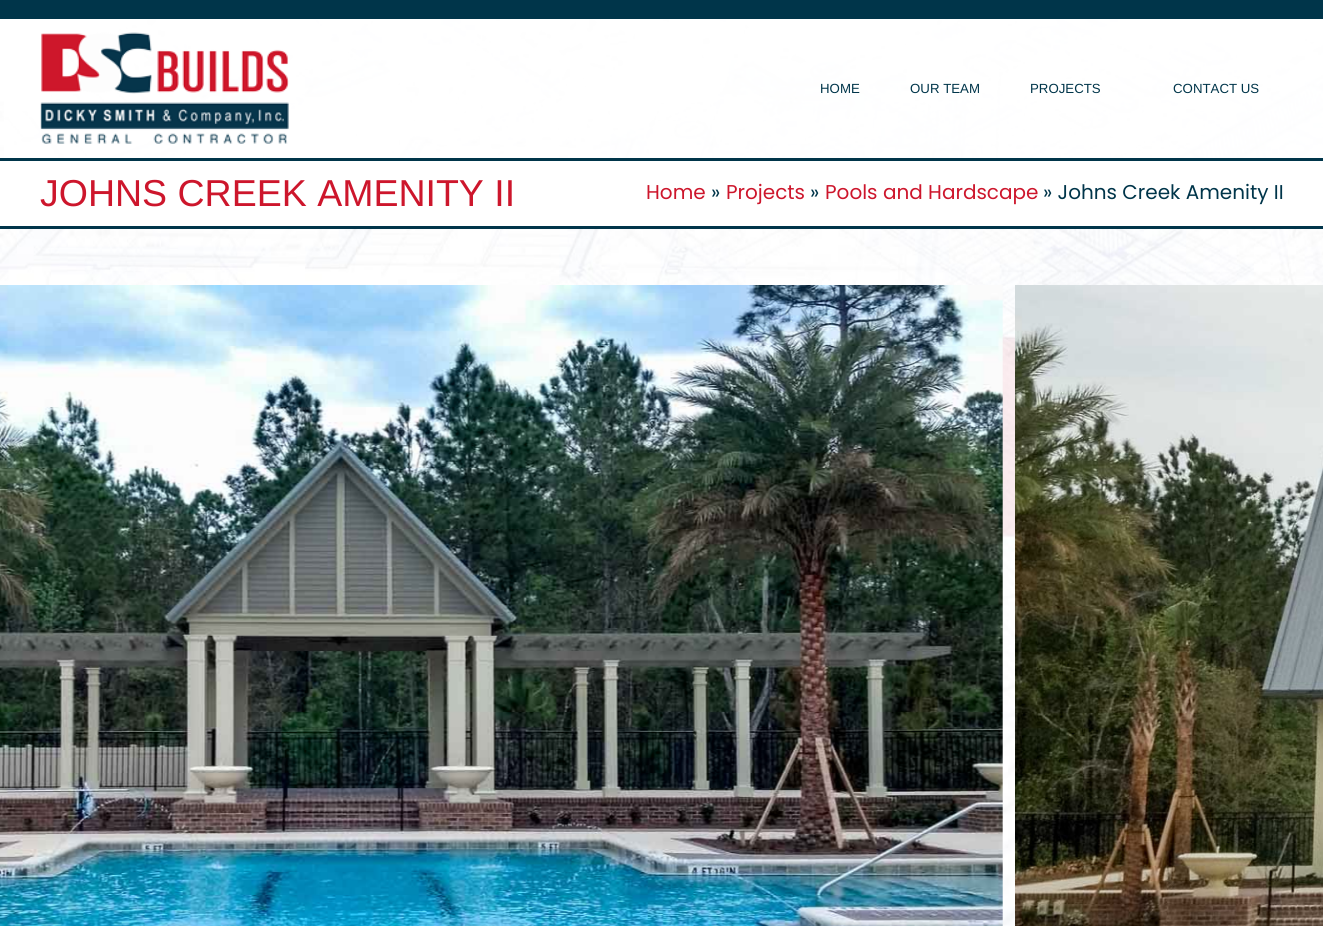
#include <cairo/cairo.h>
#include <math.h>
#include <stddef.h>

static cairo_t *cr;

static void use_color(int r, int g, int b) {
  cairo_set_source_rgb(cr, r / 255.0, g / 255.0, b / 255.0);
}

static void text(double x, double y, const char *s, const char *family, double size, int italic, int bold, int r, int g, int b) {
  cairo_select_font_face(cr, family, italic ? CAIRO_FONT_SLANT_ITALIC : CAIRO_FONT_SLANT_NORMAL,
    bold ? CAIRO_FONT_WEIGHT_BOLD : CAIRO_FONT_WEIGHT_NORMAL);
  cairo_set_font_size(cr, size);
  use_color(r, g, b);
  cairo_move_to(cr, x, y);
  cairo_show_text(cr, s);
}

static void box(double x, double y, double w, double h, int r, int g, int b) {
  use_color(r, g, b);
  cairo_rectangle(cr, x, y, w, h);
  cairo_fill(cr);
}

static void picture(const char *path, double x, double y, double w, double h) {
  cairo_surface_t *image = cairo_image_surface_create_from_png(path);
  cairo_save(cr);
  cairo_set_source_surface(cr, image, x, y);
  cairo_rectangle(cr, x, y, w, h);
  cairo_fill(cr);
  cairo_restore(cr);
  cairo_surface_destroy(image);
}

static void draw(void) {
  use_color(255, 255, 255);
  cairo_paint(cr);
  picture("img_01.png", 0, 19, 1323, 907);
  cairo_set_source_rgba(cr, 1, 1, 1, 0.85);
  cairo_rectangle(cr, 4, 19, 1319, 139);
  cairo_fill(cr);
  box(0, 0, 1323, 19, 0, 53, 74);
  box(0, 158, 1323, 3, 0, 53, 74);
  picture("img_02.png", 40, 32, 249, 112);
  box(0, 161, 1323, 65, 255, 255, 255);
  box(0, 226, 1323, 3, 0, 53, 74);
  picture("img_03.png", 0, 285, 1003, 641);
  picture("img_04.png", 1015, 285, 308, 641);
  text(820, 93, "HOME", "Liberation Sans", 13.25, 0, 0, 0, 53, 74);
  text(910, 93, "OUR TEAM", "Liberation Sans", 13.25, 0, 0, 0, 53, 74);
  text(1030, 93, "PROJECTS", "Liberation Sans", 13.25, 0, 0, 0, 53, 74);
  text(1173, 93, "CONTACT US", "Liberation Sans", 13.25, 0, 0, 0, 53, 74);
  text(40, 206, "JOHNS CREEK AMENITY II", "Liberation Sans", 37.5, 0, 0, 205, 22, 44);
  text(646, 199, "Home", "Poppins", 20, 0, 0, 205, 22, 44);
  text(711, 199, "»", "Poppins", 20, 0, 0, 0, 53, 74);
  text(726, 199, "Projects", "Poppins", 20, 0, 0, 205, 22, 44);
  text(810, 199, "»", "Poppins", 20, 0, 0, 0, 53, 74);
  text(825, 199, "Pools and Hardscape", "Poppins", 20, 0, 0, 205, 22, 44);
  text(1043, 199, "» Johns Creek Amenity II", "Poppins", 20, 0, 0, 0, 53, 74);
}

int main(void) {
  cairo_surface_t *surface = cairo_image_surface_create(CAIRO_FORMAT_RGB24, 1323, 926);
  cr = cairo_create(surface);
  cairo_font_options_t *options = cairo_font_options_create();
  cairo_font_options_set_hint_metrics(options, CAIRO_HINT_METRICS_OFF);
  cairo_font_options_set_hint_style(options, CAIRO_HINT_STYLE_NONE);
  cairo_set_font_options(cr, options);
  cairo_set_miter_limit(cr, 4);
  draw();
  cairo_surface_write_to_png(surface, "out.png");
  cairo_font_options_destroy(options);
  cairo_destroy(cr);
  cairo_surface_destroy(surface);
  return 0;
}
